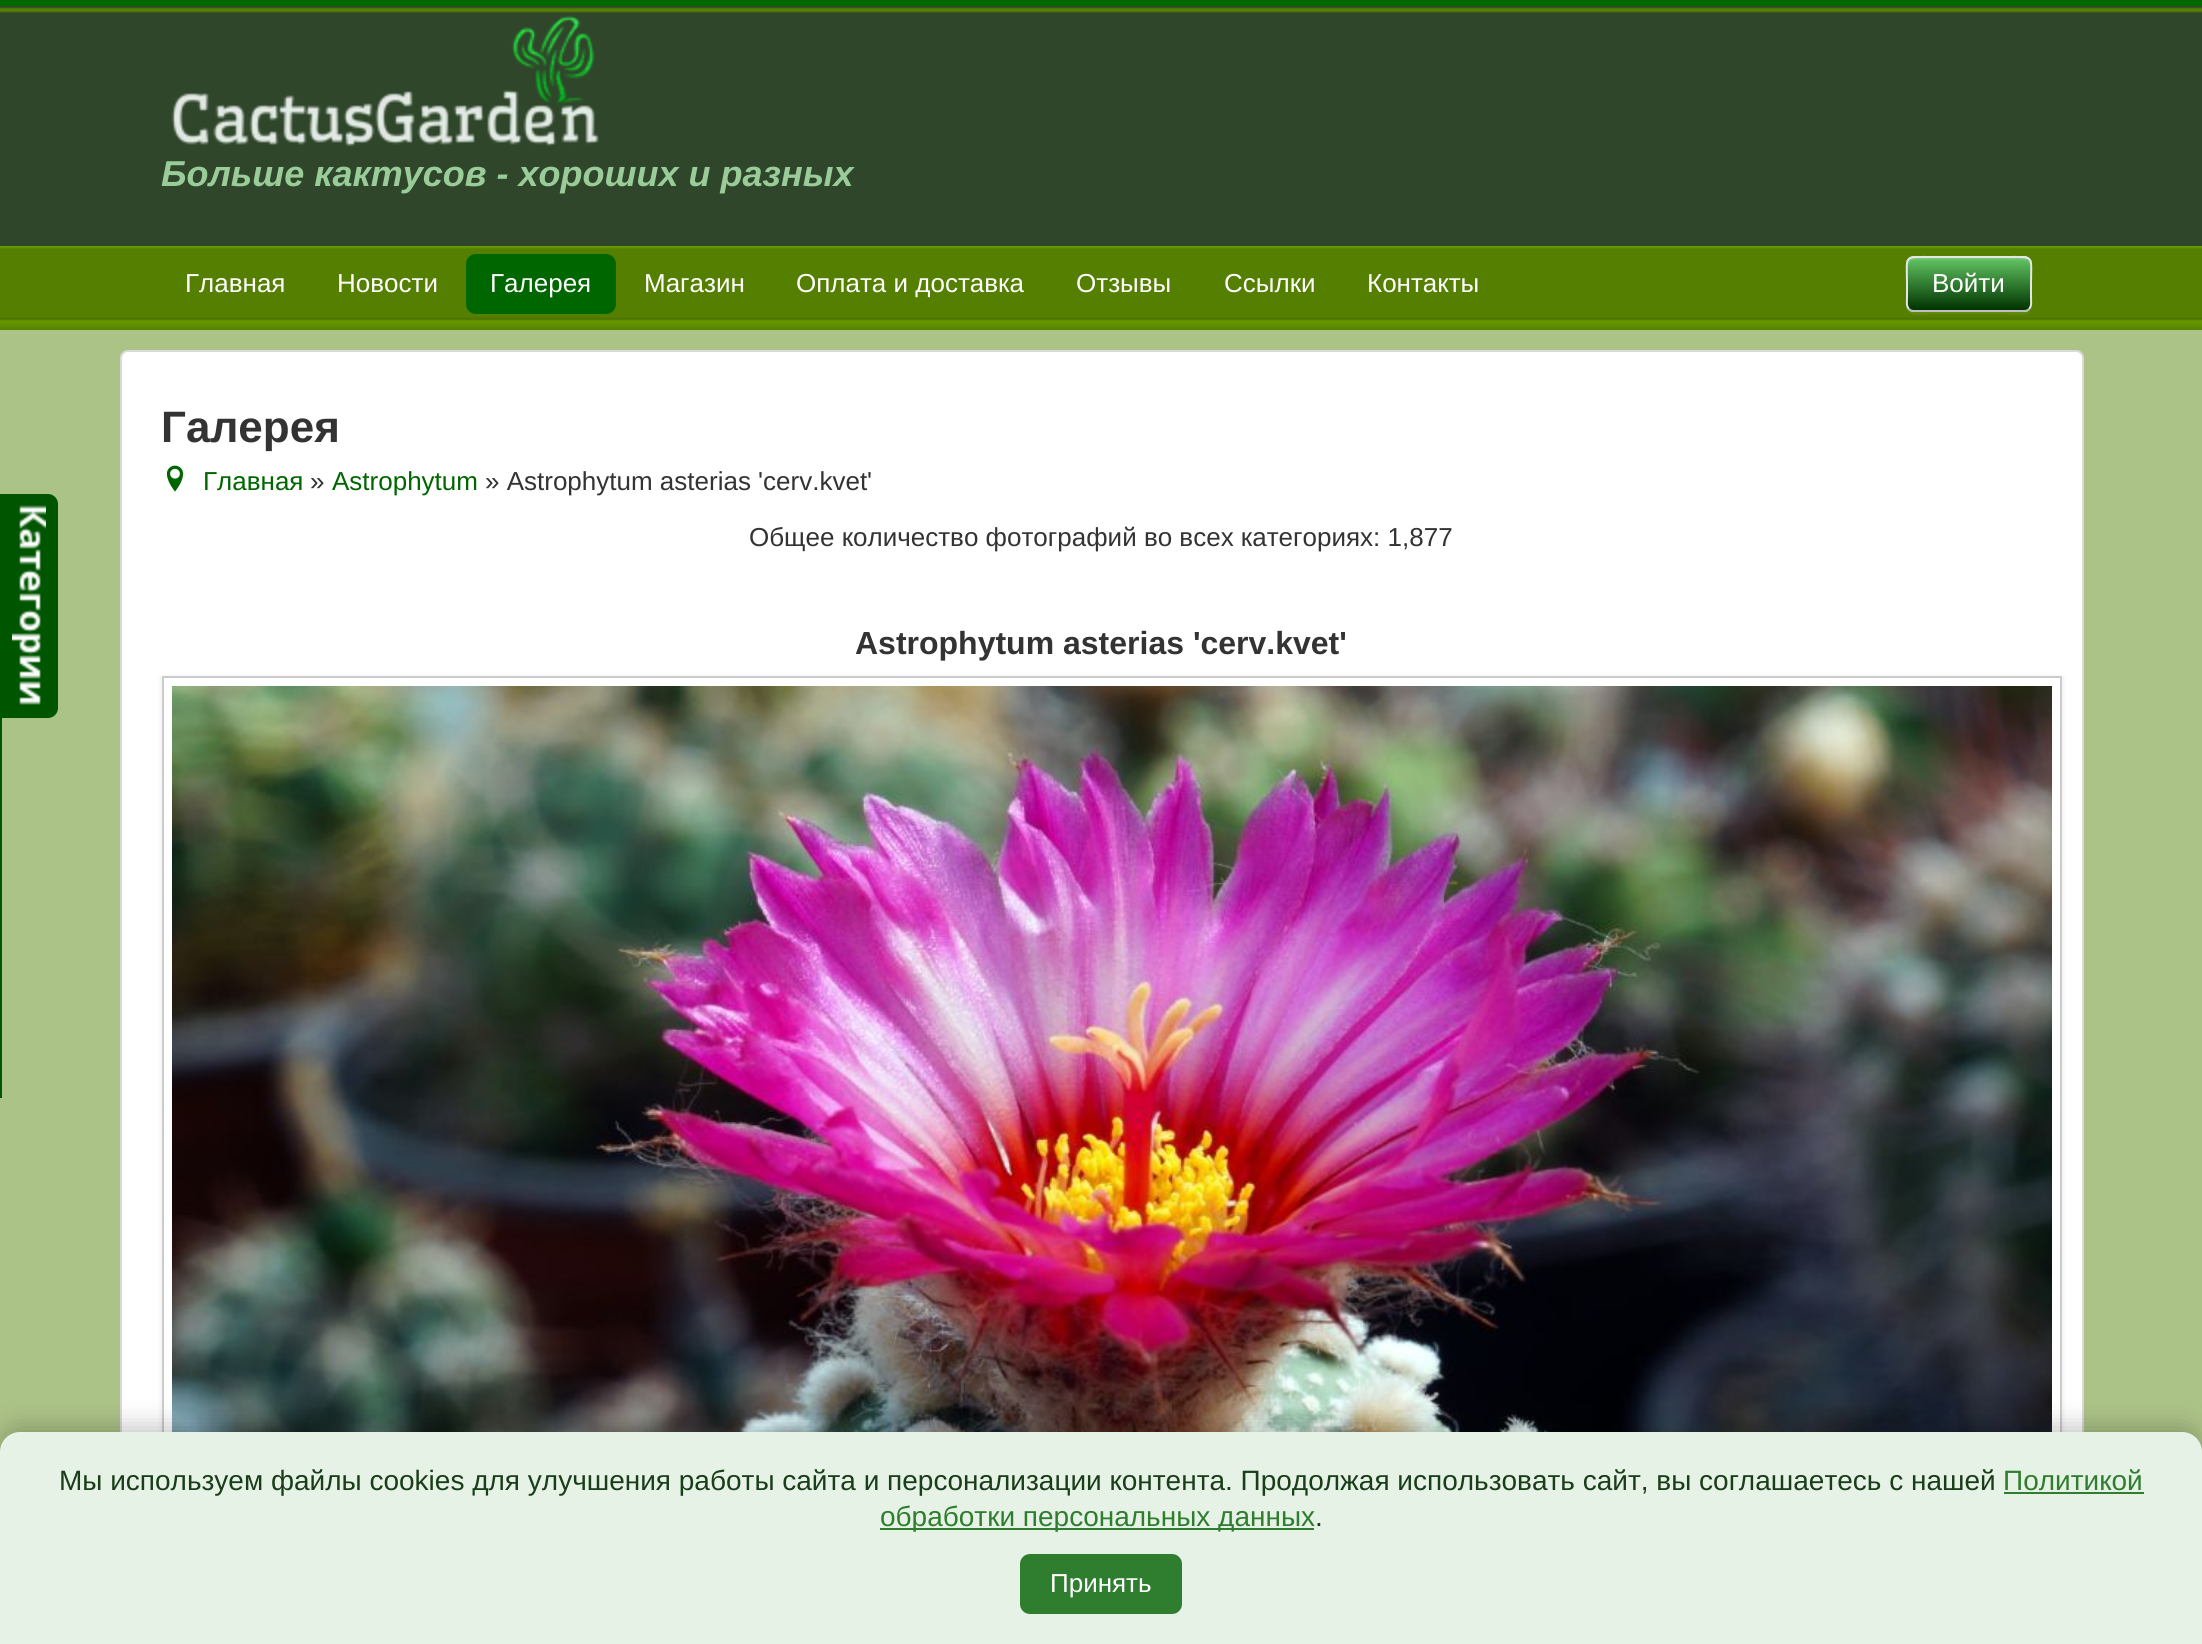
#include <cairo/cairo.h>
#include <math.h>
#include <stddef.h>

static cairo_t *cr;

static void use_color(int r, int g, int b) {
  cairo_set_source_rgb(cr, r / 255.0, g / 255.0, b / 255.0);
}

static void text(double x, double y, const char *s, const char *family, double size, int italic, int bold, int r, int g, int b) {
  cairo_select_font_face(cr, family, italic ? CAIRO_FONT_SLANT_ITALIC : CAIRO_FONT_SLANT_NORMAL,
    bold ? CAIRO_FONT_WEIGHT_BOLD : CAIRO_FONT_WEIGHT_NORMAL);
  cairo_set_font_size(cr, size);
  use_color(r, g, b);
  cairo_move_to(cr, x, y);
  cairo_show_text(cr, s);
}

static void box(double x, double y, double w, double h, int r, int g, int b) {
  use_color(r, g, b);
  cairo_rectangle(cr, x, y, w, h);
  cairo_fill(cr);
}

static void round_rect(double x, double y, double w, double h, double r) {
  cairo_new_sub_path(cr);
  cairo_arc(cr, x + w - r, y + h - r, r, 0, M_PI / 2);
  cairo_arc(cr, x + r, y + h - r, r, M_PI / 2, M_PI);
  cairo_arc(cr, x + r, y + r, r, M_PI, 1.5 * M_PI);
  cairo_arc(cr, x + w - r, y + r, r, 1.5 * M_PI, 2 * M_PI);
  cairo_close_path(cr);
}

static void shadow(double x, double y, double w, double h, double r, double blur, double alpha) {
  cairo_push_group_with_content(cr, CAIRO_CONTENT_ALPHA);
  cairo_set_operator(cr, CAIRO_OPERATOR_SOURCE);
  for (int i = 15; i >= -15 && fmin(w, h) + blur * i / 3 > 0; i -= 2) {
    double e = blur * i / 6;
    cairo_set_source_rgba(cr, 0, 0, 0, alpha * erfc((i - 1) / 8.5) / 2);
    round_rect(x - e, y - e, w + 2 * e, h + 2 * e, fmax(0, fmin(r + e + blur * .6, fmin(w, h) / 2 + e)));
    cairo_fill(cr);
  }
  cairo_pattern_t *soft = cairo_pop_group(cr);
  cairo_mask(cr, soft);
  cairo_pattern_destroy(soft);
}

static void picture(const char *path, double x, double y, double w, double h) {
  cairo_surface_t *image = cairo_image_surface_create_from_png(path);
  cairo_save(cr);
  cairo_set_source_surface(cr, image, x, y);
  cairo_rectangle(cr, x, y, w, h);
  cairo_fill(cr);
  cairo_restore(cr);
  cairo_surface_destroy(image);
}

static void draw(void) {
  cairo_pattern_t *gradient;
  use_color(172, 195, 135);
  cairo_paint(cr);
  box(0, 0, 2202, 6, 0, 102, 0);
  box(0, 6, 2202, 240, 47, 70, 43);
  picture("img_01.png", 0, 7, 2202, 6);
  box(162, 7, 1880, 6, 47, 70, 43);
  picture("img_02.png", 162, 7, 1880, 6);
  picture("img_03.png", 171, 15, 428, 132);
  picture("img_04.png", 0, 246, 2202, 84);
  use_color(0, 102, 0);
  round_rect(466, 254, 150, 60, 10);
  cairo_fill(cr);
  use_color(98, 137, 20);
  cairo_new_path(cr);
  cairo_move_to(cr, 1906, 304);
  cairo_curve_to(cr, 1906, 319, 1922, 314, 1932, 314);
  cairo_line_to(cr, 2006, 314);
  cairo_curve_to(cr, 2016, 314, 2032, 319, 2032, 304);
  cairo_curve_to(cr, 2032, 308, 2028, 312, 2024, 312);
  cairo_line_to(cr, 1914, 312);
  cairo_curve_to(cr, 1910, 312, 1906, 308, 1906, 304);
  cairo_close_path(cr);
  cairo_fill(cr);
  use_color(237, 237, 237);
  round_rect(1906, 256, 126, 56, 8);
  cairo_fill(cr);
  cairo_save(cr);
  round_rect(1906, 256, 126, 56, 8);
  cairo_clip(cr);
  gradient = cairo_pattern_create_linear(1969, 258, 1969, 310);
  cairo_pattern_add_color_stop_rgba(gradient, 0, 0.384, 0.769, 0.384, 1);
  cairo_pattern_add_color_stop_rgba(gradient, 1, 0, 0.2, 0, 1);
  cairo_set_source(cr, gradient);
  cairo_pattern_destroy(gradient);
  cairo_rectangle(cr, 1906, 258, 126, 52);
  cairo_fill(cr);
  cairo_restore(cr);
  cairo_set_source_rgba(cr, 1, 1, 1, 0.1);
  cairo_new_path(cr);
  cairo_move_to(cr, 1914, 260);
  cairo_line_to(cr, 2024, 260);
  cairo_curve_to(cr, 2027, 260, 2030, 263, 2030, 266);
  cairo_line_to(cr, 2030, 264);
  cairo_curve_to(cr, 2030, 261, 2027, 258, 2024, 258);
  cairo_line_to(cr, 1914, 258);
  cairo_curve_to(cr, 1911, 258, 1908, 261, 1908, 264);
  cairo_line_to(cr, 1908, 266);
  cairo_curve_to(cr, 1908, 263, 1911, 260, 1914, 260);
  cairo_close_path(cr);
  cairo_fill(cr);
  cairo_new_path(cr);
  cairo_move_to(cr, 2029, 309);
  cairo_curve_to(cr, 2027.5, 310.5, 2026, 311, 2024, 311);
  cairo_line_to(cr, 1914, 311);
  cairo_curve_to(cr, 1912, 311, 1910.5, 310.5, 1909, 309);
  use_color(191, 191, 191);
  cairo_stroke(cr);
  cairo_new_path(cr);
  cairo_move_to(cr, 1909, 309);
  cairo_curve_to(cr, 1906, 306, 1907, 301, 1907, 297.5);
  cairo_line_to(cr, 1907, 284);
  cairo_curve_to(cr, 1907, 254.5, 1902.5, 257, 1932.5, 257);
  cairo_line_to(cr, 2005.5, 257);
  cairo_curve_to(cr, 2035.5, 257, 2031, 254.5, 2031, 284);
  cairo_line_to(cr, 2031, 297.5);
  cairo_curve_to(cr, 2031, 301, 2032, 306, 2029, 309);
  use_color(230, 230, 230);
  cairo_stroke(cr);
  use_color(255, 255, 255);
  round_rect(120, 350, 1964, 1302, 8);
  cairo_fill(cr);
  round_rect(121, 351, 1962, 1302, 7);
  cairo_set_source_rgba(cr, 0, 0, 0, 0.15);
  cairo_stroke(cr);
  picture("img_05.png", 166, 465, 18, 27);
  cairo_save(cr);
  cairo_set_fill_rule(cr, CAIRO_FILL_RULE_EVEN_ODD);
  cairo_new_path(cr);
  cairo_move_to(cr, 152, 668);
  cairo_line_to(cr, 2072, 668);
  cairo_line_to(cr, 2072, 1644);
  cairo_line_to(cr, 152, 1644);
  cairo_close_path(cr);
  cairo_move_to(cr, 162, 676);
  cairo_line_to(cr, 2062, 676);
  cairo_line_to(cr, 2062, 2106);
  cairo_line_to(cr, 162, 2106);
  cairo_close_path(cr);
  cairo_clip(cr);
  use_color(0, 0, 0);
  shadow(162, 678, 1900, 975, 0, 3, 0.1);
  cairo_restore(cr);
  cairo_rectangle(cr, 163, 677, 1898, 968);
  use_color(204, 204, 204);
  cairo_stroke(cr);
  picture("img_06.png", 172, 686, 1880, 746);
  cairo_rectangle(cr, -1, 495, 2, 602);
  use_color(0, 85, 0);
  cairo_stroke(cr);
  cairo_new_path(cr);
  cairo_move_to(cr, 0, 494);
  cairo_line_to(cr, 48, 494);
  cairo_curve_to(cr, 53.5, 494, 58, 498.5, 58, 504);
  cairo_line_to(cr, 58, 708);
  cairo_curve_to(cr, 58, 713.5, 53.5, 718, 48, 718);
  cairo_line_to(cr, 0, 718);
  cairo_close_path(cr);
  cairo_fill(cr);
  picture("img_07.png", 12, 505, 34, 200);
  use_color(0, 0, 0);
  shadow(0, 1424, 2202, 212, 20, 12, 0.2);
  use_color(230, 242, 230);
  cairo_new_path(cr);
  cairo_move_to(cr, 20, 1432);
  cairo_line_to(cr, 2182, 1432);
  cairo_curve_to(cr, 2193, 1432, 2202, 1441, 2202, 1452);
  cairo_line_to(cr, 2202, 1644);
  cairo_line_to(cr, 0, 1644);
  cairo_line_to(cr, 0, 1452);
  cairo_curve_to(cr, 0, 1441, 9, 1432, 20, 1432);
  cairo_close_path(cr);
  cairo_fill(cr);
  box(2004, 1492, 140, 2, 47, 125, 47);
  box(880, 1528, 434, 2, 47, 125, 47);
  round_rect(1020, 1554, 162, 60, 10);
  cairo_fill(cr);
  text(161, 186, "Больше кактусов - хороших и разных", "Liberation Sans", 36, 1, 1, 153, 204, 153);
  text(185, 292, "Главная", "Liberation Sans", 26, 0, 0, 255, 255, 255);
  text(337, 292, "Новости", "Liberation Sans", 26, 0, 0, 255, 255, 255);
  text(490, 292, "Галерея", "Liberation Sans", 26, 0, 0, 255, 255, 255);
  text(644, 292, "Магазин", "Liberation Sans", 26, 0, 0, 255, 255, 255);
  text(796, 292, "Оплата и доставка", "Liberation Sans", 26, 0, 0, 255, 255, 255);
  text(1076, 292, "Отзывы", "Liberation Sans", 26, 0, 0, 255, 255, 255);
  text(1224, 292, "Ссылки", "Liberation Sans", 26, 0, 0, 255, 255, 255);
  text(1367, 292, "Контакты", "Liberation Sans", 26, 0, 0, 255, 255, 255);
  text(1932, 292, "Войти", "Liberation Sans", 26, 0, 0, 255, 255, 255);
  text(161, 442, "Галерея", "Liberation Sans", 44, 0, 1, 51, 51, 51);
  text(203, 490, "Главная", "Liberation Sans", 26, 0, 0, 0, 102, 0);
  text(310, 490, "»", "Liberation Sans", 26, 0, 0, 51, 51, 51);
  text(332, 490, "Astrophytum", "Liberation Sans", 26, 0, 0, 0, 102, 0);
  text(485, 490, "» Astrophytum asterias 'cerv.kvet'", "Liberation Sans", 26, 0, 0, 51, 51, 51);
  text(749, 546, "Общее количество фотографий во всех категориях: 1,877", "Liberation Sans", 26, 0, 0, 51, 51, 51);
  text(855, 654, "Astrophytum asterias 'cerv.kvet'", "Liberation Sans", 32, 0, 1, 51, 51, 51);
  text(59, 1490, "Мы используем файлы cookies для улучшения работы сайта и персонализации контента. Продолжая использовать сайт, вы соглашаетесь с нашей", "Liberation Sans", 28, 0, 0, 26, 61, 26);
  text(2003, 1490, "Политикой", "Liberation Sans", 28, 0, 0, 47, 125, 47);
  text(880, 1526, "обработки персональных данных", "Liberation Sans", 28, 0, 0, 47, 125, 47);
  text(1315, 1526, ".", "Liberation Sans", 28, 0, 0, 26, 61, 26);
  text(1050, 1592, "Принять", "Liberation Sans", 26, 0, 0, 255, 255, 255);
}

int main(void) {
  cairo_surface_t *surface = cairo_image_surface_create(CAIRO_FORMAT_RGB24, 2202, 1644);
  cr = cairo_create(surface);
  cairo_font_options_t *options = cairo_font_options_create();
  cairo_font_options_set_hint_metrics(options, CAIRO_HINT_METRICS_OFF);
  cairo_font_options_set_hint_style(options, CAIRO_HINT_STYLE_NONE);
  cairo_set_font_options(cr, options);
  cairo_set_miter_limit(cr, 4);
  draw();
  cairo_surface_write_to_png(surface, "out.png");
  cairo_font_options_destroy(options);
  cairo_destroy(cr);
  cairo_surface_destroy(surface);
  return 0;
}
